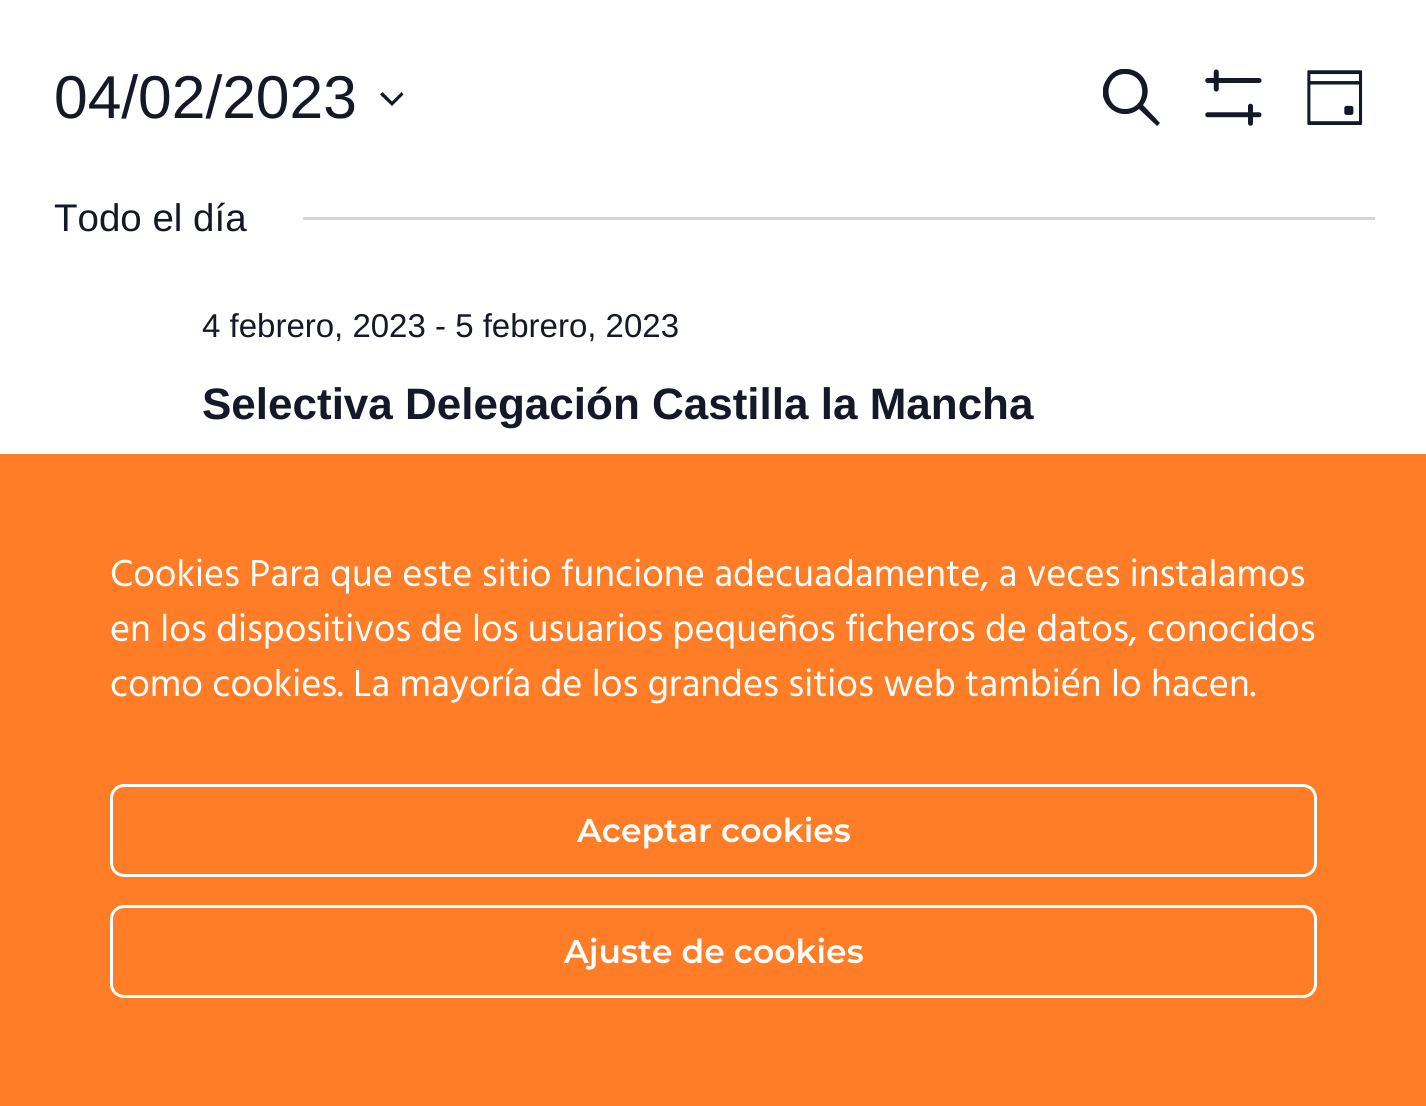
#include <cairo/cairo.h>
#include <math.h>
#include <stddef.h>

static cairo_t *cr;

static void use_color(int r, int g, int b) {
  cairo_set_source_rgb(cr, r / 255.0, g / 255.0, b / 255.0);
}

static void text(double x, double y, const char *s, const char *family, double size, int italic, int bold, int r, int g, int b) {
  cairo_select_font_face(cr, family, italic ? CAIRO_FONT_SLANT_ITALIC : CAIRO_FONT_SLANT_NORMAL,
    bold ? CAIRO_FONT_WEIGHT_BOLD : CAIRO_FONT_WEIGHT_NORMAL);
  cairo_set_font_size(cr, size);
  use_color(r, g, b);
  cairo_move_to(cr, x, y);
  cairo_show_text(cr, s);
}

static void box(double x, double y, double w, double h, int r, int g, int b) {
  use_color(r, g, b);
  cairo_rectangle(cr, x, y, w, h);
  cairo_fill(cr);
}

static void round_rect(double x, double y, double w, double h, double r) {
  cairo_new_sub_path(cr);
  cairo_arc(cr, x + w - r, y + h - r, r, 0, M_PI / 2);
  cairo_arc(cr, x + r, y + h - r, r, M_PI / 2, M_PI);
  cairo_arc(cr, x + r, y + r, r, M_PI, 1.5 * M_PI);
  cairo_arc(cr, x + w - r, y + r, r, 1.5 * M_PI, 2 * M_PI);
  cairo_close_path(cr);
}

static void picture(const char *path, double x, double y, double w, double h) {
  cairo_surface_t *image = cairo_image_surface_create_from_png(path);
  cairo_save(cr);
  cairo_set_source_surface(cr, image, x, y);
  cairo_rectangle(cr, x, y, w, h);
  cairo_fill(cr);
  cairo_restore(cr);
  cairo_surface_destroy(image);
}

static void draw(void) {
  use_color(255, 255, 255);
  cairo_paint(cr);
  use_color(20, 24, 39);
  cairo_set_fill_rule(cr, CAIRO_FILL_RULE_EVEN_ODD);
  cairo_new_path(cr);
  cairo_move_to(cr, 382.5, 92);
  cairo_line_to(cr, 392, 101.5);
  cairo_line_to(cr, 401.5, 92);
  cairo_line_to(cr, 403.5, 94.5);
  cairo_line_to(cr, 392, 106);
  cairo_line_to(cr, 380, 94.5);
  cairo_close_path(cr);
  cairo_fill(cr);
  cairo_save(cr);
  cairo_set_fill_rule(cr, CAIRO_FILL_RULE_WINDING);
  cairo_rectangle(cr, 1103, 69, 58, 58);
  cairo_clip(cr);
  cairo_set_fill_rule(cr, CAIRO_FILL_RULE_EVEN_ODD);
  cairo_new_path(cr);
  cairo_move_to(cr, 1143, 105);
  cairo_line_to(cr, 1160, 123);
  cairo_line_to(cr, 1157, 126);
  cairo_line_to(cr, 1139, 109);
  cairo_curve_to(cr, 1119, 125, 1092, 100, 1107, 79);
  cairo_curve_to(cr, 1110, 74, 1115, 70, 1121, 69);
  cairo_curve_to(cr, 1128, 68, 1136, 70, 1141, 75);
  cairo_curve_to(cr, 1149, 83, 1150, 96, 1143, 105);
  cairo_close_path(cr);
  cairo_move_to(cr, 1125, 74);
  cairo_curve_to(cr, 1103, 74, 1103, 109, 1125, 109);
  cairo_curve_to(cr, 1148, 109, 1148, 74, 1125, 74);
  cairo_close_path(cr);
  cairo_fill(cr);
  cairo_restore(cr);
  picture("img_01.png", 1205, 69, 57, 57);
  picture("img_02.png", 1307, 70, 56, 55);
  box(303, 217, 1072, 3, 213, 213, 213);
  box(0, 454, 1426, 652, 255, 125, 39);
  round_rect(111.5, 785.5, 1204, 90, 12.5);
  use_color(255, 255, 255);
  cairo_set_line_width(cr, 3);
  cairo_stroke(cr);
  round_rect(111.5, 906.5, 1204, 90, 12.5);
  cairo_stroke(cr);
  text(54, 118, "04/02/2023", "Liberation Sans", 60.5, 0, 0, 20, 24, 39);
  text(54, 231, "Todo el día", "Liberation Sans", 38.5, 0, 0, 20, 24, 39);
  text(202, 337, "4 febrero, 2023 - 5 febrero, 2023", "Liberation Sans", 33, 0, 0, 20, 24, 39);
  text(202, 419, "Selectiva Delegación Castilla la Mancha", "Liberation Sans", 44, 0, 1, 20, 24, 39);
  text(110, 586, "Cookies Para que este sitio funcione adecuadamente, a veces instalamos", "Hind", 38.5, 0, 0, 255, 255, 255);
  text(110, 641, "en los dispositivos de los usuarios pequeños ficheros de datos, conocidos", "Hind", 38.5, 0, 0, 255, 255, 255);
  text(110, 696, "como cookies. La mayoría de los grandes sitios web también lo hacen.", "Hind", 38.5, 0, 0, 255, 255, 255);
  text(577, 842, "Aceptar cookies", "Montserrat SemiBold", 33, 0, 0, 255, 255, 255);
  text(564, 963, "Ajuste de cookies", "Montserrat SemiBold", 33, 0, 0, 255, 255, 255);
}

int main(void) {
  cairo_surface_t *surface = cairo_image_surface_create(CAIRO_FORMAT_RGB24, 1426, 1106);
  cr = cairo_create(surface);
  cairo_font_options_t *options = cairo_font_options_create();
  cairo_font_options_set_hint_metrics(options, CAIRO_HINT_METRICS_OFF);
  cairo_font_options_set_hint_style(options, CAIRO_HINT_STYLE_NONE);
  cairo_set_font_options(cr, options);
  cairo_set_miter_limit(cr, 4);
  draw();
  cairo_surface_write_to_png(surface, "out.png");
  cairo_font_options_destroy(options);
  cairo_destroy(cr);
  cairo_surface_destroy(surface);
  return 0;
}
